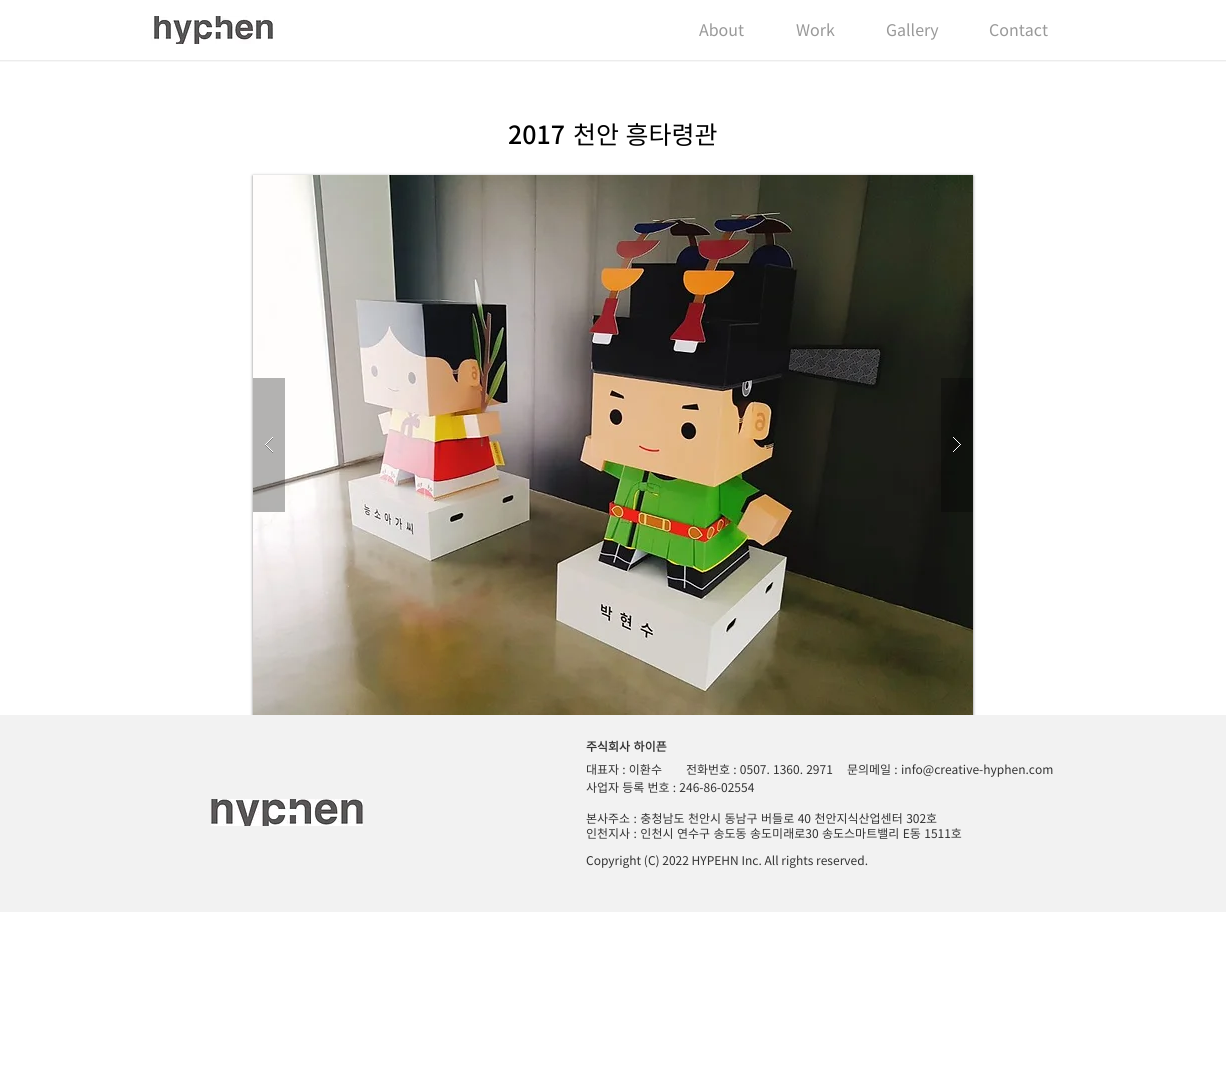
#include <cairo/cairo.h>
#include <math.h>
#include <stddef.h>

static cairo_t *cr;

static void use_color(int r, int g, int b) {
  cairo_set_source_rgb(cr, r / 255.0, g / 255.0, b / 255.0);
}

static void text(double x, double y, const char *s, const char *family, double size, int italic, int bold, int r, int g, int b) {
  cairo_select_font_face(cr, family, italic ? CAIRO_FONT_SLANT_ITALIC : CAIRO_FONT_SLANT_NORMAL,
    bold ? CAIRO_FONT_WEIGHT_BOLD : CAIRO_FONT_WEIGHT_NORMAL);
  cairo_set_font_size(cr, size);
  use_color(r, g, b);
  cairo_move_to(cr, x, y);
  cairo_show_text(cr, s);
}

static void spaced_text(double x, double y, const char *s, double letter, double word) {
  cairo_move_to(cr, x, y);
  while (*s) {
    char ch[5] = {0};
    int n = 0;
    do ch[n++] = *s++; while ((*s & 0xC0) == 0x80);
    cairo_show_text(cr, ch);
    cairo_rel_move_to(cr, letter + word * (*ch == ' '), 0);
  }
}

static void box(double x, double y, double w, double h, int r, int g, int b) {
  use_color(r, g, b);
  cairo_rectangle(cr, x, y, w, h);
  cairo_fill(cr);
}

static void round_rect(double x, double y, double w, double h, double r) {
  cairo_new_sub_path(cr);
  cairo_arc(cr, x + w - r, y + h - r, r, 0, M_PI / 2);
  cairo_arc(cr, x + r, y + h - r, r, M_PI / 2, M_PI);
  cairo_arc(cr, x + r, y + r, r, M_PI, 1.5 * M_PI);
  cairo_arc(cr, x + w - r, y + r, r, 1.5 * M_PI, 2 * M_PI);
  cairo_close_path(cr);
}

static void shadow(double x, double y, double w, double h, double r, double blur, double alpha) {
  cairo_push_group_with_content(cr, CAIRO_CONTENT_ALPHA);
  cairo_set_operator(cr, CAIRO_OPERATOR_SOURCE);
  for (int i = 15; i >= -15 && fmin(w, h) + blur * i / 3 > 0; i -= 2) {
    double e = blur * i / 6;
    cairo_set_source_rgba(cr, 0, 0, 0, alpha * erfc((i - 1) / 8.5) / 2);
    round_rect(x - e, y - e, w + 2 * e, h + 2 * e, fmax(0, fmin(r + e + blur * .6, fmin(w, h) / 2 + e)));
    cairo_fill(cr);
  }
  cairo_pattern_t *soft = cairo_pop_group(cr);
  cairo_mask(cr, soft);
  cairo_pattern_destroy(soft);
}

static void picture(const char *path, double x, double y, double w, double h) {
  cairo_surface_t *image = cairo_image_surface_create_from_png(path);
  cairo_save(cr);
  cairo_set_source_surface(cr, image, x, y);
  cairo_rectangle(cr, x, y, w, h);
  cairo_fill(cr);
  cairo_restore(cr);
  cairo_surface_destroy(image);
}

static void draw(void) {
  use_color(255, 255, 255);
  cairo_paint(cr);
  cairo_save(cr);
  cairo_rectangle(cr, 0, 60, 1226, 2);
  cairo_clip(cr);
  use_color(0, 0, 0);
  shadow(-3, -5, 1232, 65, 0, 1.5, 0.2);
  cairo_restore(cr);
  picture("img_01.png", 151, 16, 124, 28);
  use_color(0, 0, 0);
  shadow(253, 176, 720, 540, 0, 1.5, 0.5);
  picture("img_02.png", 253, 175, 720, 540);
  cairo_set_source_rgba(cr, 0, 0, 0, 0.3);
  cairo_rectangle(cr, 253, 378, 32, 134);
  cairo_fill(cr);
  picture("img_03.png", 265, 437, 8, 16);
  cairo_rectangle(cr, 941, 378, 32, 134);
  cairo_fill(cr);
  picture("img_04.png", 953, 437, 8, 16);
  box(0, 715, 1226, 197, 242, 242, 242);
  picture("img_05.png", 211, 799, 152, 27);
  text(699, 36, "About", "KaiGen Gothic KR", 16, 0, 0, 153, 153, 153);
  text(796, 36, "Work", "KaiGen Gothic KR", 16, 0, 0, 153, 153, 153);
  text(886, 36, "Gallery", "KaiGen Gothic KR", 16, 0, 0, 153, 153, 153);
  text(989, 36, "Contact", "KaiGen Gothic KR", 16, 0, 0, 153, 153, 153);
  text(508, 144, "2017", "KaiGen Gothic KR Medium", 25, 0, 0, 0, 0, 0);
  cairo_select_font_face(cr, "KaiGen Gothic KR", CAIRO_FONT_SLANT_NORMAL, CAIRO_FONT_WEIGHT_NORMAL);
  spaced_text(573, 144, "천안 흥타령관", 0, 1);
  cairo_select_font_face(cr, "KaiGen Gothic KR", CAIRO_FONT_SLANT_NORMAL, CAIRO_FONT_WEIGHT_BOLD);
  cairo_set_font_size(cr, 12);
  use_color(51, 51, 51);
  spaced_text(586, 751, "주식회사 하이픈", 0, 0.75);
  cairo_select_font_face(cr, "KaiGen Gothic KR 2", CAIRO_FONT_SLANT_NORMAL, CAIRO_FONT_WEIGHT_NORMAL);
  spaced_text(586, 774, "대표자 : 이환수", 0, 0.5);
  spaced_text(686, 774, "전화번호 : 0507. 1360. 2971", 0, 0.5);
  spaced_text(847, 774, "문의메일 :", 0, 0.5);
  text(901, 774, "info@creative-hyphen.com", "KaiGen Gothic KR 2", 12, 0, 0, 51, 51, 51);
  spaced_text(586, 792, "사업자 등록 번호 : 246-86-02554", 0, 0.5);
  spaced_text(586, 823, "본사주소 : 충청남도 천안시 동남구 버들로 40 천안지식산업센터 302호", 0, 0.75);
  spaced_text(586, 838, "인천지사 : 인천시 연수구 송도동 송도미래로30 송도스마트밸리 E동 1511호", 0, 0.75);
  text(586, 865, "Copyright (C) 2022 HYPEHN Inc. All rights reserved.", "KaiGen Gothic KR 2", 12, 0, 0, 51, 51, 51);
}

int main(void) {
  cairo_surface_t *surface = cairo_image_surface_create(CAIRO_FORMAT_RGB24, 1226, 1065);
  cr = cairo_create(surface);
  cairo_font_options_t *options = cairo_font_options_create();
  cairo_font_options_set_hint_metrics(options, CAIRO_HINT_METRICS_OFF);
  cairo_font_options_set_hint_style(options, CAIRO_HINT_STYLE_NONE);
  cairo_set_font_options(cr, options);
  cairo_set_miter_limit(cr, 4);
  draw();
  cairo_surface_write_to_png(surface, "out.png");
  cairo_font_options_destroy(options);
  cairo_destroy(cr);
  cairo_surface_destroy(surface);
  return 0;
}
